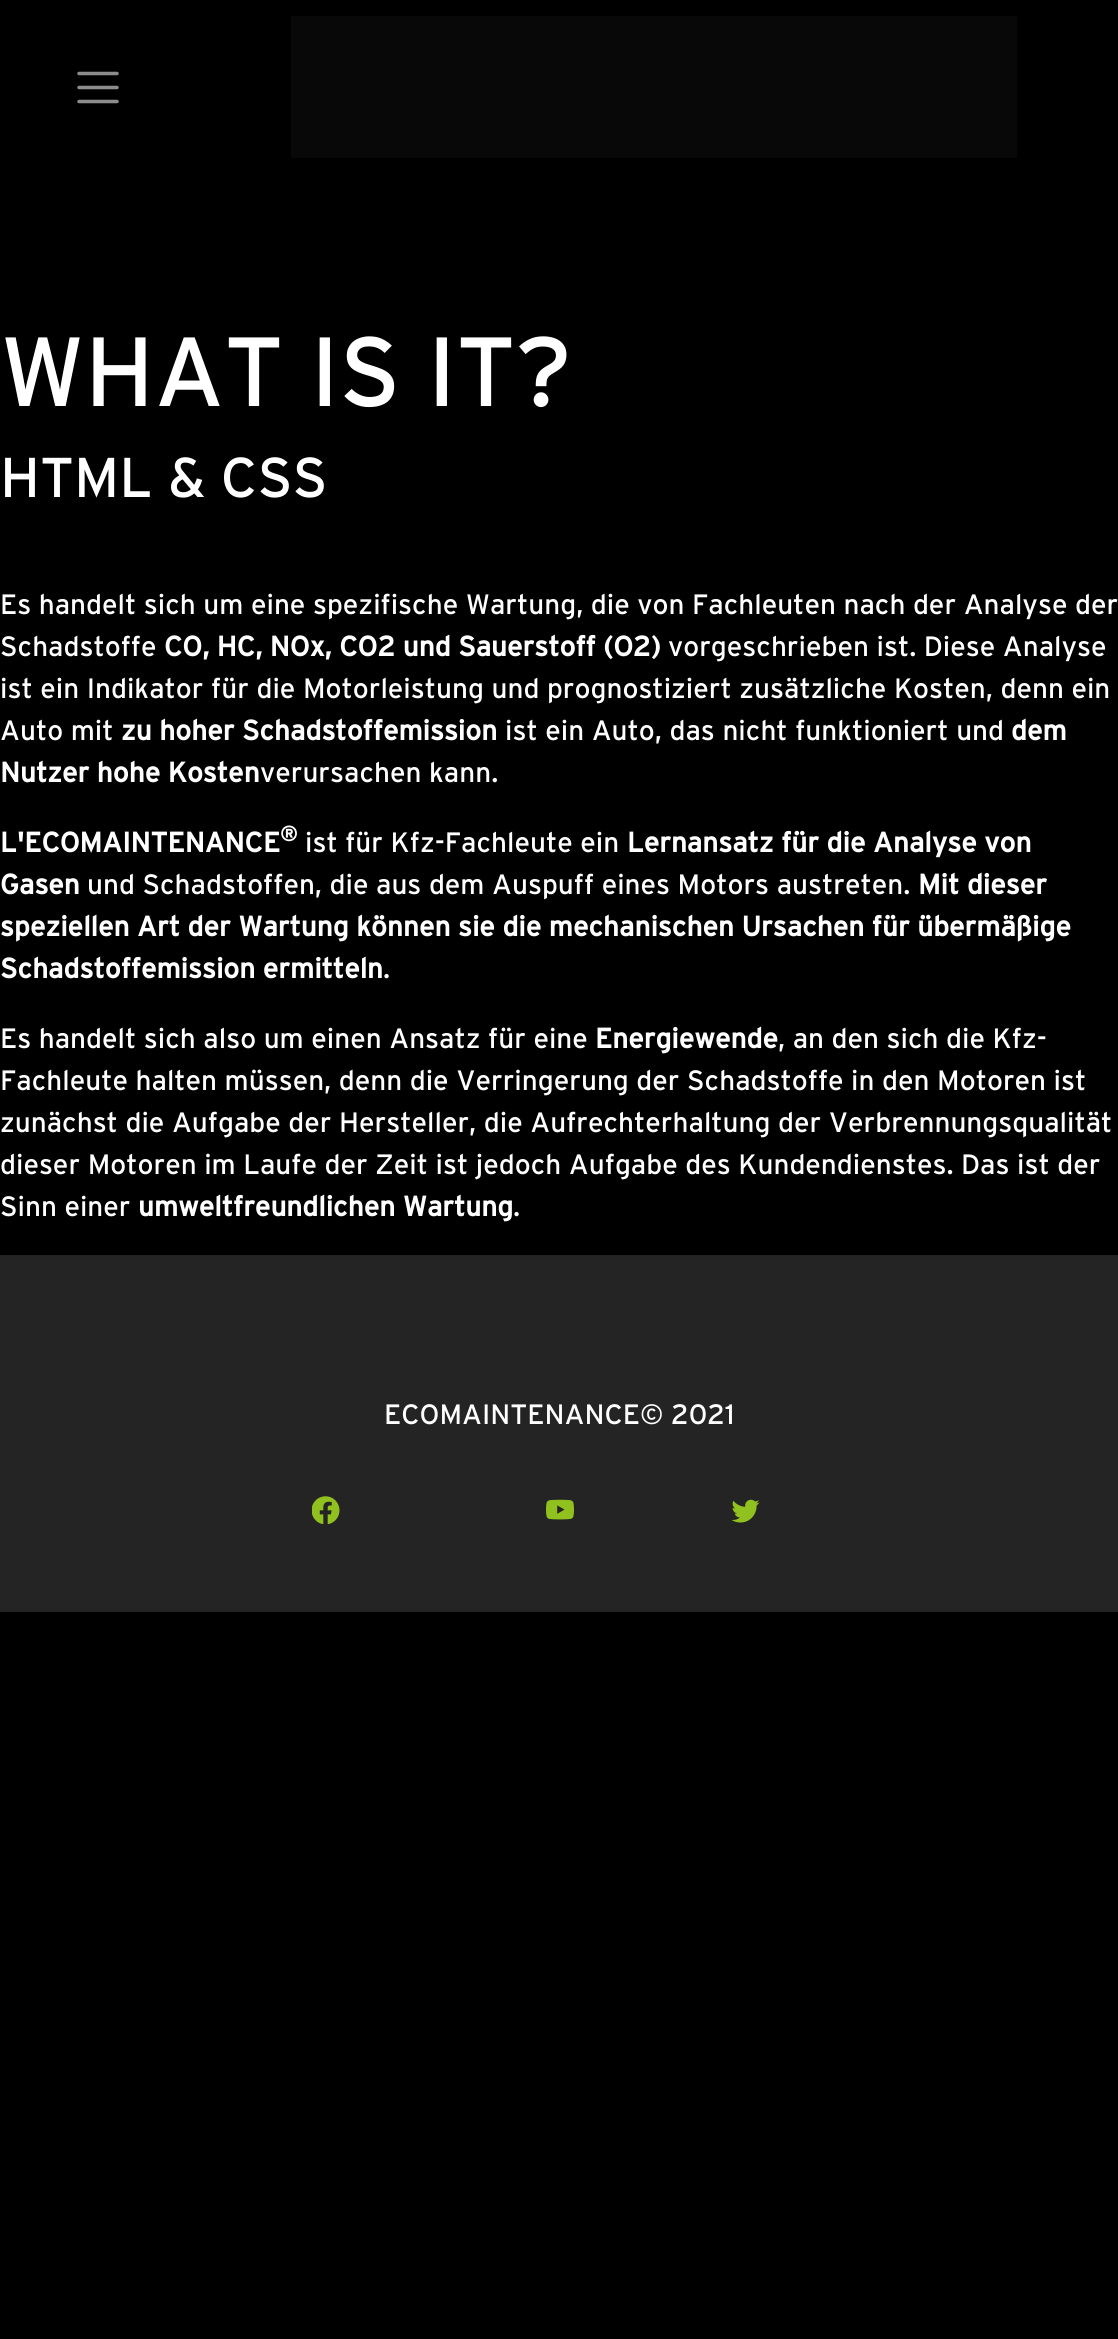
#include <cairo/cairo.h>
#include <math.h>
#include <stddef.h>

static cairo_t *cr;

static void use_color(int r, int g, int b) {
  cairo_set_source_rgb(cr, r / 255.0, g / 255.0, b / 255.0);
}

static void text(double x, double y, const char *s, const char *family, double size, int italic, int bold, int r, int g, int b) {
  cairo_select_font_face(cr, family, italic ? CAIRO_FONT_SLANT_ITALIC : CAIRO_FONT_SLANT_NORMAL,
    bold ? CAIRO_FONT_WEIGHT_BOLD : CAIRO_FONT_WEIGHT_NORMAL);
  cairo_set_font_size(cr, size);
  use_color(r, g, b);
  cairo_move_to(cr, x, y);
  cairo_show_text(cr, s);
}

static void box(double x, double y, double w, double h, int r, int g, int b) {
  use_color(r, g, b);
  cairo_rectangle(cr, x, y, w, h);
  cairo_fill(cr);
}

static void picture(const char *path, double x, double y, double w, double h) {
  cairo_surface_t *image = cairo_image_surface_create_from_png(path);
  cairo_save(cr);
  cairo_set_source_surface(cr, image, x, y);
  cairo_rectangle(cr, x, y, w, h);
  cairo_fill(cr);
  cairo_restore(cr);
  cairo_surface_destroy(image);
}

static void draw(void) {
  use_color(0, 0, 0);
  cairo_paint(cr);
  cairo_new_path(cr);
  cairo_move_to(cr, 79, 73.5);
  cairo_line_to(cr, 117, 73.5);
  cairo_move_to(cr, 79, 87.5);
  cairo_line_to(cr, 117, 87.5);
  cairo_move_to(cr, 79, 101.5);
  cairo_line_to(cr, 117, 101.5);
  use_color(140, 140, 140);
  cairo_set_line_width(cr, 3.5);
  cairo_set_line_cap(cr, CAIRO_LINE_CAP_ROUND);
  cairo_stroke(cr);
  box(291, 16, 726, 142, 8, 8, 8);
  box(0, 1255, 1118, 357, 36, 36, 36);
  picture("img_01.png", 312, 1496, 28, 28);
  picture("img_02.png", 546, 1499, 28, 21);
  picture("img_03.png", 732, 1499, 28, 24);
  text(0, 406, "WHAT IS IT?", "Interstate", 98, 0, 0, 255, 255, 255);
  text(0, 497, "HTML & CSS", "Interstate", 56, 0, 0, 255, 255, 255);
  text(0, 614, "Es handelt sich um eine spezifische Wartung, die von Fachleuten nach der Analyse der", "Interstate", 28, 0, 0, 255, 255, 255);
  text(0, 656, "Schadstoffe", "Interstate", 28, 0, 0, 255, 255, 255);
  text(164, 656, "CO, HC, NOx, CO2 und Sauerstoff (O2)", "Interstate", 28, 0, 1, 255, 255, 255);
  text(668, 656, "vorgeschrieben ist. Diese Analyse", "Interstate", 28, 0, 0, 255, 255, 255);
  text(0, 698, "ist ein Indikator für die Motorleistung und prognostiziert zusätzliche Kosten, denn ein", "Interstate", 28, 0, 0, 255, 255, 255);
  text(0, 740, "Auto mit", "Interstate", 28, 0, 0, 255, 255, 255);
  text(121, 740, "zu hoher Schadstoffemission", "Interstate", 28, 0, 1, 255, 255, 255);
  text(505, 740, "ist ein Auto, das nicht funktioniert und", "Interstate", 28, 0, 0, 255, 255, 255);
  text(1011, 740, "dem", "Interstate", 28, 0, 1, 255, 255, 255);
  text(0, 782, "Nutzer hohe Kosten", "Interstate", 28, 0, 1, 255, 255, 255);
  text(260, 782, "verursachen kann.", "Interstate", 28, 0, 0, 255, 255, 255);
  text(0, 852, "L'ECOMAINTENANCE", "Interstate", 28, 0, 1, 255, 255, 255);
  text(280, 841, "®", "Interstate", 21, 0, 1, 255, 255, 255);
  text(305, 852, "ist für Kfz-Fachleute ein", "Interstate", 28, 0, 0, 255, 255, 255);
  text(627, 852, "Lernansatz für die Analyse von", "Interstate", 28, 0, 1, 255, 255, 255);
  text(0, 894, "Gasen", "Interstate", 28, 0, 1, 255, 255, 255);
  text(87, 894, "und Schadstoffen, die aus dem Auspuff eines Motors austreten.", "Interstate", 28, 0, 0, 255, 255, 255);
  text(918, 894, "Mit dieser", "Interstate", 28, 0, 1, 255, 255, 255);
  text(0, 936, "speziellen Art der Wartung können sie die mechanischen Ursachen für übermäßige", "Interstate", 28, 0, 1, 255, 255, 255);
  text(0, 978, "Schadstoffemission ermitteln", "Interstate", 28, 0, 1, 255, 255, 255);
  text(383, 978, ".", "Interstate", 28, 0, 0, 255, 255, 255);
  text(0, 1048, "Es handelt sich also um einen Ansatz für eine", "Interstate", 28, 0, 0, 255, 255, 255);
  text(595, 1048, "Energiewende", "Interstate", 28, 0, 1, 255, 255, 255);
  text(778, 1048, ", an den sich die Kfz-", "Interstate", 28, 0, 0, 255, 255, 255);
  text(0, 1090, "Fachleute halten müssen, denn die Verringerung der Schadstoffe in den Motoren ist", "Interstate", 28, 0, 0, 255, 255, 255);
  text(0, 1132, "zunächst die Aufgabe der Hersteller, die Aufrechterhaltung der Verbrennungsqualität", "Interstate", 28, 0, 0, 255, 255, 255);
  text(0, 1174, "dieser Motoren im Laufe der Zeit ist jedoch Aufgabe des Kundendienstes. Das ist der", "Interstate", 28, 0, 0, 255, 255, 255);
  text(0, 1216, "Sinn einer", "Interstate", 28, 0, 0, 255, 255, 255);
  text(138, 1216, "umweltfreundlichen Wartung", "Interstate", 28, 0, 1, 255, 255, 255);
  text(513, 1216, ".", "Interstate", 28, 0, 0, 255, 255, 255);
  text(384, 1424, "ECOMAINTENANCE© 2021", "Interstate", 28, 0, 0, 255, 255, 255);
}

int main(void) {
  cairo_surface_t *surface = cairo_image_surface_create(CAIRO_FORMAT_RGB24, 1118, 2339);
  cr = cairo_create(surface);
  cairo_font_options_t *options = cairo_font_options_create();
  cairo_font_options_set_hint_metrics(options, CAIRO_HINT_METRICS_OFF);
  cairo_font_options_set_hint_style(options, CAIRO_HINT_STYLE_NONE);
  cairo_set_font_options(cr, options);
  cairo_set_miter_limit(cr, 4);
  draw();
  cairo_surface_write_to_png(surface, "out.png");
  cairo_font_options_destroy(options);
  cairo_destroy(cr);
  cairo_surface_destroy(surface);
  return 0;
}
